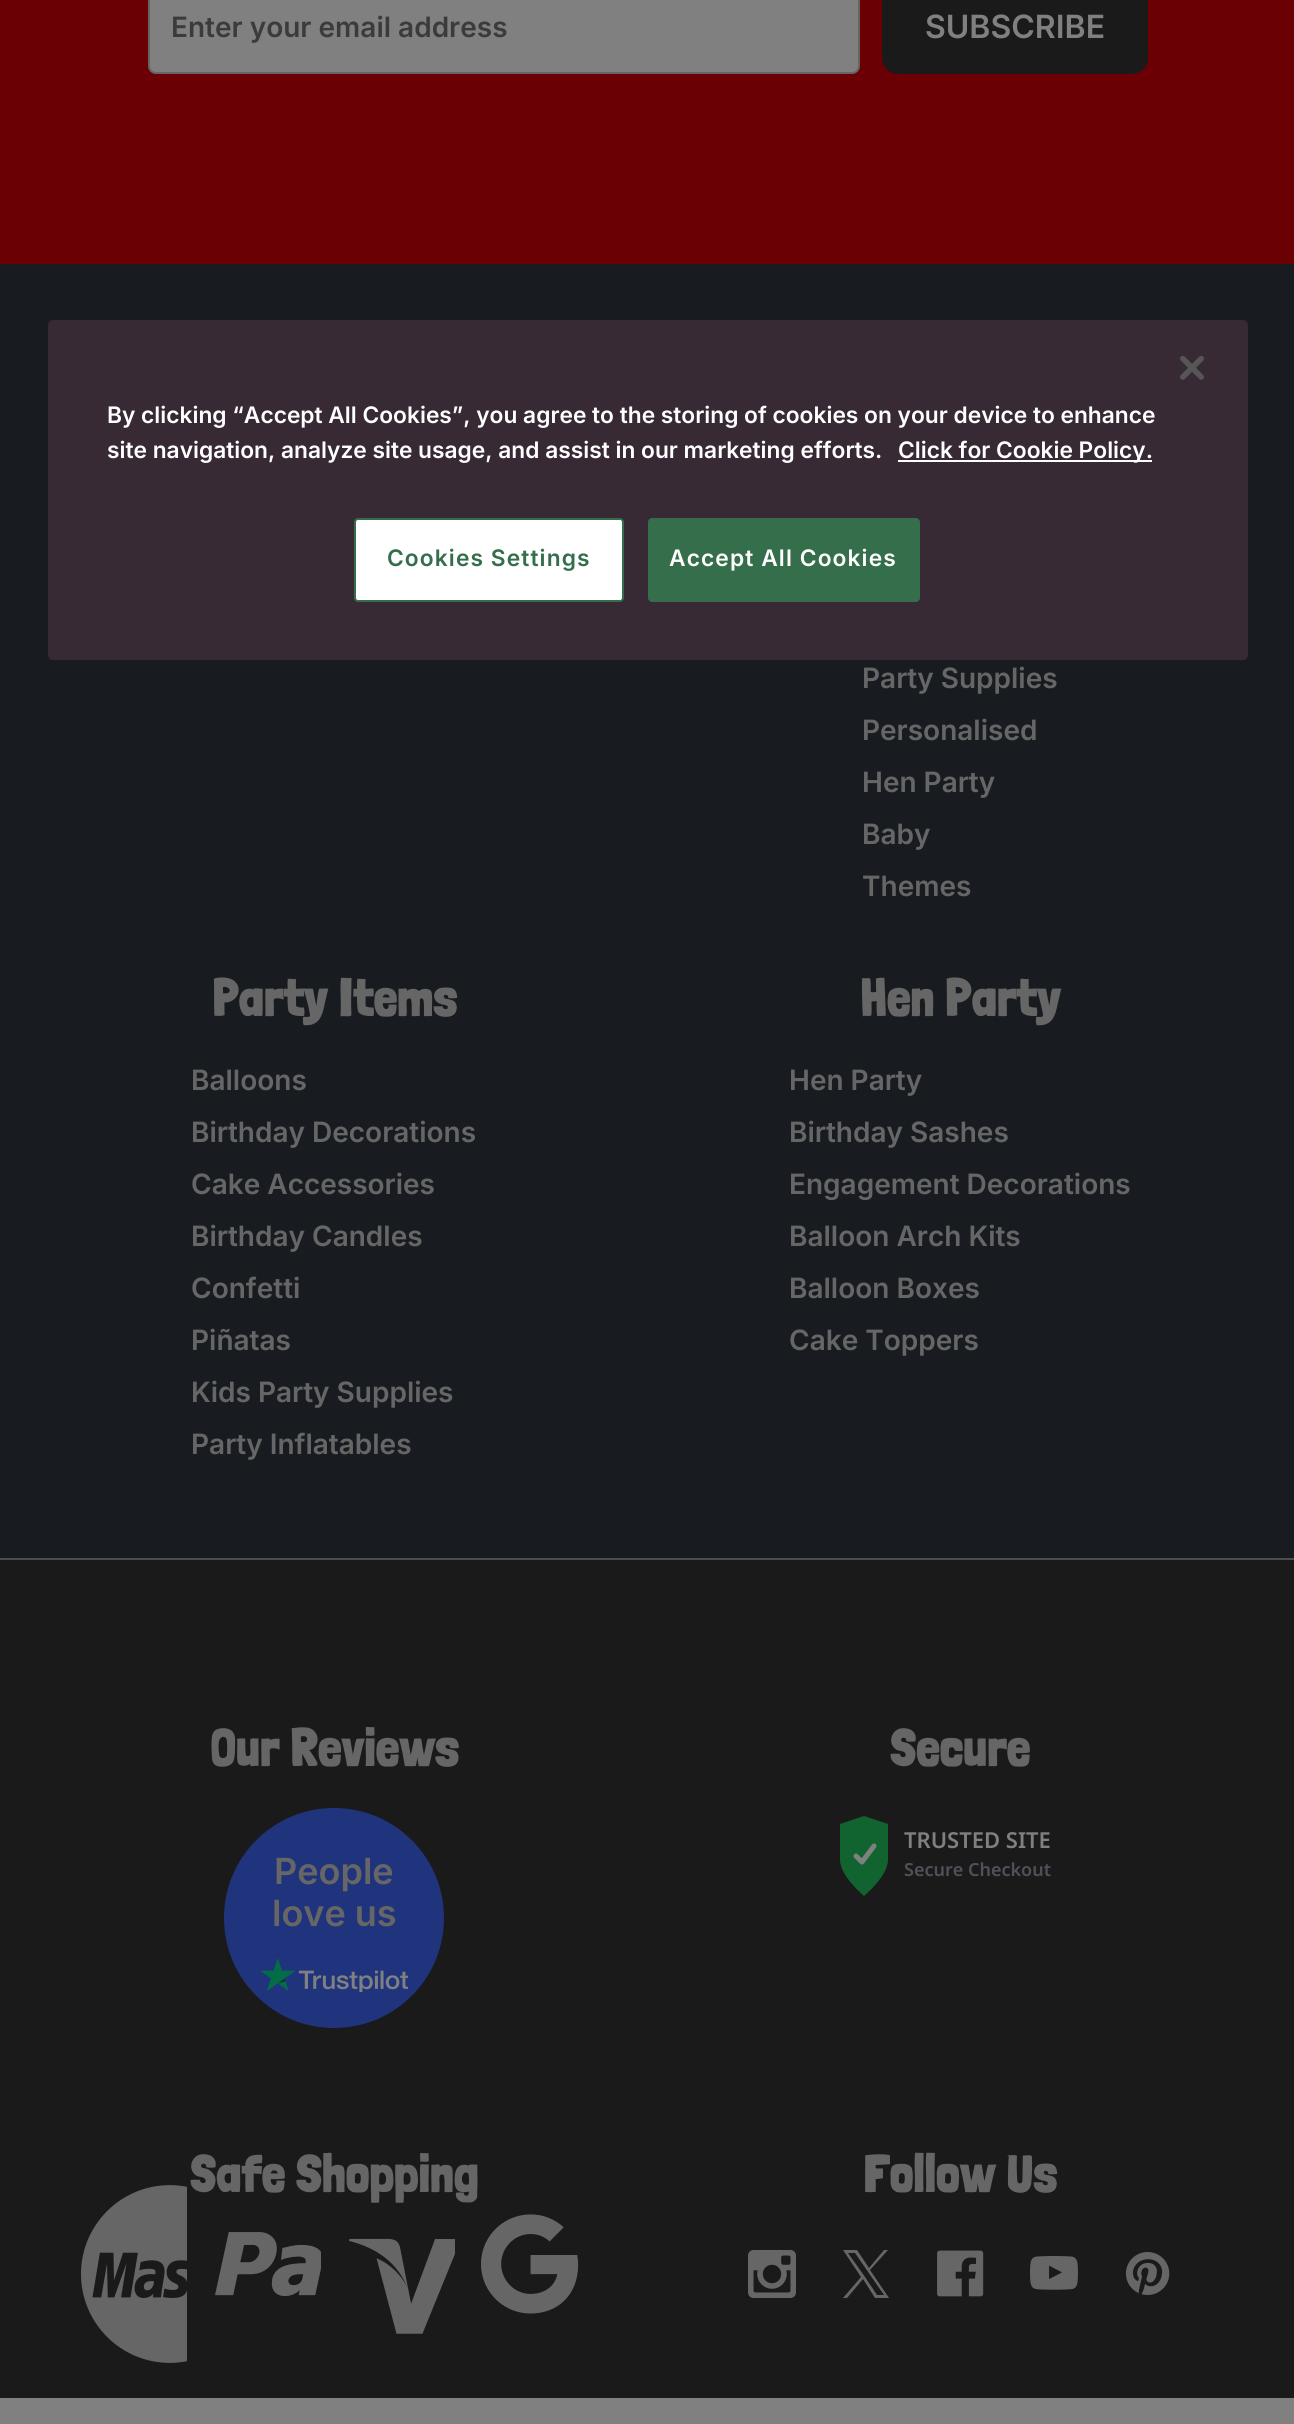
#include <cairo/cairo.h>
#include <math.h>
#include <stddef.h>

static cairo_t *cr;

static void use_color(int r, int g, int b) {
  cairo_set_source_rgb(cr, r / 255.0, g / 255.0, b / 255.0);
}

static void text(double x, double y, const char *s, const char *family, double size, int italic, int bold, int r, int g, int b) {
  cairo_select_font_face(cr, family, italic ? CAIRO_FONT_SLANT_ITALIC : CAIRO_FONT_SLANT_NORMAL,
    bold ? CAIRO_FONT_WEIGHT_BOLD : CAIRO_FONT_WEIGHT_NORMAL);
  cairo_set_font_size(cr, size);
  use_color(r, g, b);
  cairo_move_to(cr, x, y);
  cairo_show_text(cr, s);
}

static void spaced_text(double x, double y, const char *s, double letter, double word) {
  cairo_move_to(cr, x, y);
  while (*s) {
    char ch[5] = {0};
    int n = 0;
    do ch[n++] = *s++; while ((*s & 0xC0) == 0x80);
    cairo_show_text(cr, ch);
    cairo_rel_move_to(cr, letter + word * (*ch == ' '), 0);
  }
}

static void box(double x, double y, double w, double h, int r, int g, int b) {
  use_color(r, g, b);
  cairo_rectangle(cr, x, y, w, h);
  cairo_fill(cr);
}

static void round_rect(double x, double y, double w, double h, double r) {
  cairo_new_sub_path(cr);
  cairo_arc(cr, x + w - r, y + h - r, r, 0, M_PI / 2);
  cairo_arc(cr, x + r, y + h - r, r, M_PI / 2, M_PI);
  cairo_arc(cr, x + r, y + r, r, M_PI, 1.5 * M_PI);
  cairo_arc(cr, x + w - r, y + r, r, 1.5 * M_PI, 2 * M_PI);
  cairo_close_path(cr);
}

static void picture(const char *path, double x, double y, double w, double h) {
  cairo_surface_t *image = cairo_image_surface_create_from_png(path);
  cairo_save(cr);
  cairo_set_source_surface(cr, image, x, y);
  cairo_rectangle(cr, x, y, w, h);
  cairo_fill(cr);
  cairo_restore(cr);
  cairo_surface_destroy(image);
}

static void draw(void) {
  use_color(128, 128, 128);
  cairo_paint(cr);
  box(0, 264, 1294, 1294, 24, 28, 33);
  box(0, 0, 1294, 264, 106, 0, 3);
  use_color(128, 128, 128);
  round_rect(149, -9, 710, 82, 7);
  cairo_fill_preserve(cr);
  use_color(102, 102, 102);
  cairo_stroke(cr);
  use_color(26, 26, 26);
  round_rect(882, -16, 266, 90, 16);
  cairo_fill(cr);
  box(0, 1558, 1294, 2, 77, 77, 77);
  box(0, 1560, 1294, 838, 26, 26, 26);
  use_color(31, 52, 124);
  cairo_arc(cr, 334, 1918, 110, 0, 2 * M_PI);
  cairo_fill(cr);
  picture("img_01.png", 260, 1958, 148, 34);
  use_color(17, 99, 47);
  cairo_new_path(cr);
  cairo_move_to(cr, 864, 1816);
  cairo_line_to(cr, 840, 1824);
  cairo_line_to(cr, 840, 1860);
  cairo_curve_to(cr, 840, 1876, 864, 1896, 864, 1896);
  cairo_curve_to(cr, 864, 1896, 888, 1876, 888, 1860);
  cairo_line_to(cr, 888, 1824);
  cairo_close_path(cr);
  cairo_fill(cr);
  cairo_new_path(cr);
  cairo_move_to(cr, 856, 1856);
  cairo_line_to(cr, 862, 1862);
  cairo_line_to(cr, 874, 1846);
  use_color(128, 128, 128);
  cairo_set_line_width(cr, 5);
  cairo_set_line_cap(cr, CAIRO_LINE_CAP_ROUND);
  cairo_set_line_join(cr, CAIRO_LINE_JOIN_ROUND);
  cairo_stroke(cr);
  picture("img_02.png", 81, 2185, 106, 178);
  picture("img_03.png", 215, 2232, 106, 65);
  picture("img_04.png", 349, 2238, 106, 96);
  picture("img_05.png", 481, 2214, 98, 100);
  picture("img_06.png", 748, 2250, 48, 48);
  use_color(102, 102, 102);
  cairo_new_path(cr);
  cairo_move_to(cr, 870, 2270);
  cairo_line_to(cr, 888, 2250);
  cairo_line_to(cr, 884, 2250);
  cairo_line_to(cr, 869, 2268);
  cairo_line_to(cr, 857, 2250);
  cairo_line_to(cr, 843, 2250);
  cairo_line_to(cr, 861, 2277);
  cairo_line_to(cr, 843, 2298);
  cairo_line_to(cr, 847, 2298);
  cairo_line_to(cr, 863, 2279);
  cairo_line_to(cr, 875, 2298);
  cairo_line_to(cr, 889, 2298);
  cairo_close_path(cr);
  cairo_move_to(cr, 865, 2277);
  cairo_line_to(cr, 848, 2253);
  cairo_line_to(cr, 855, 2253);
  cairo_line_to(cr, 884, 2295);
  cairo_line_to(cr, 877, 2295);
  cairo_close_path(cr);
  cairo_fill(cr);
  picture("img_07.png", 937, 2250, 47, 47);
  picture("img_08.png", 1030, 2256, 48, 34);
  picture("img_09.png", 1125, 2252, 45, 43);
  use_color(55, 42, 53);
  round_rect(48, 320, 1200, 340, 5);
  cairo_fill(cr);
  picture("img_10.png", 1180, 356, 24, 24);
  box(898, 460, 254, 2, 255, 255, 255);
  round_rect(355, 519, 268, 82, 3);
  cairo_fill_preserve(cr);
  use_color(52, 110, 74);
  cairo_set_line_width(cr, 2);
  cairo_set_line_cap(cr, CAIRO_LINE_CAP_BUTT);
  cairo_set_line_join(cr, CAIRO_LINE_JOIN_MITER);
  cairo_stroke(cr);
  round_rect(649, 519, 270, 82, 3);
  cairo_fill_preserve(cr);
  cairo_stroke(cr);
  text(171, 37, "Enter your email address", "Inter SemiBold", 28, 0, 0, 59, 59, 59);
  text(925, 38, "SUBSCRIBE", "Inter SemiBold", 32, 0, 0, 128, 128, 128);
  text(862, 688, "Party Supplies", "Inter SemiBold", 28, 0, 0, 102, 102, 102);
  text(862, 740, "Personalised", "Inter SemiBold", 28, 0, 0, 102, 102, 102);
  text(862, 792, "Hen Party", "Inter SemiBold", 28, 0, 0, 102, 102, 102);
  text(862, 844, "Baby", "Inter SemiBold", 28, 0, 0, 102, 102, 102);
  text(862, 896, "Themes", "Inter SemiBold", 28, 0, 0, 102, 102, 102);
  cairo_select_font_face(cr, "Londrina Solid", CAIRO_FONT_SLANT_NORMAL, CAIRO_FONT_WEIGHT_BOLD);
  cairo_set_font_size(cr, 52);
  spaced_text(212, 1016, "Party Items", 0.5, 0);
  text(191, 1090, "Balloons", "Inter SemiBold", 28, 0, 0, 102, 102, 102);
  text(191, 1142, "Birthday Decorations", "Inter SemiBold", 28, 0, 0, 102, 102, 102);
  text(191, 1194, "Cake Accessories", "Inter SemiBold", 28, 0, 0, 102, 102, 102);
  text(191, 1246, "Birthday Candles", "Inter SemiBold", 28, 0, 0, 102, 102, 102);
  text(191, 1298, "Confetti", "Inter SemiBold", 28, 0, 0, 102, 102, 102);
  text(191, 1350, "Piñatas", "Inter SemiBold", 28, 0, 0, 102, 102, 102);
  text(191, 1402, "Kids Party Supplies", "Inter SemiBold", 28, 0, 0, 102, 102, 102);
  text(191, 1454, "Party Inflatables", "Inter SemiBold", 28, 0, 0, 102, 102, 102);
  cairo_select_font_face(cr, "Londrina Solid", CAIRO_FONT_SLANT_NORMAL, CAIRO_FONT_WEIGHT_BOLD);
  cairo_set_font_size(cr, 52);
  spaced_text(860, 1016, "Hen Party", 0.5, 0);
  text(789, 1090, "Hen Party", "Inter SemiBold", 28, 0, 0, 102, 102, 102);
  text(789, 1142, "Birthday Sashes", "Inter SemiBold", 28, 0, 0, 102, 102, 102);
  text(789, 1194, "Engagement Decorations", "Inter SemiBold", 28, 0, 0, 102, 102, 102);
  text(789, 1246, "Balloon Arch Kits", "Inter SemiBold", 28, 0, 0, 102, 102, 102);
  text(789, 1298, "Balloon Boxes", "Inter SemiBold", 28, 0, 0, 102, 102, 102);
  text(789, 1350, "Cake Toppers", "Inter SemiBold", 28, 0, 0, 102, 102, 102);
  cairo_select_font_face(cr, "Londrina Solid", CAIRO_FONT_SLANT_NORMAL, CAIRO_FONT_WEIGHT_BOLD);
  cairo_set_font_size(cr, 52);
  spaced_text(210, 1766, "Our Reviews", 0.5, 0);
  text(274, 1884, "People", "Inter SemiBold", 36, 0, 0, 102, 102, 102);
  text(272, 1926, "love us", "Inter SemiBold", 36, 0, 0, 102, 102, 102);
  cairo_select_font_face(cr, "Londrina Solid", CAIRO_FONT_SLANT_NORMAL, CAIRO_FONT_WEIGHT_BOLD);
  cairo_set_font_size(cr, 52);
  spaced_text(890, 1766, "Secure", 0.5, 0);
  text(904, 1848, "TRUSTED SITE", "Noto Sans SemiBold", 22, 0, 0, 128, 128, 128);
  text(904, 1876, "Secure Checkout", "Noto Sans SemiBold", 18, 0, 0, 78, 82, 88);
  cairo_select_font_face(cr, "Londrina Solid", CAIRO_FONT_SLANT_NORMAL, CAIRO_FONT_WEIGHT_BOLD);
  cairo_set_font_size(cr, 52);
  use_color(102, 102, 102);
  spaced_text(190, 2192, "Safe Shopping", 0.5, 0);
  spaced_text(863, 2192, "Follow Us", 0.5, 0);
  text(107, 423, "By clicking “Accept All Cookies”, you agree to the storing of cookies on your device to enhance", "Inter SemiBold", 22.75, 0, 0, 255, 255, 255);
  text(107, 458, "site navigation, analyze site usage, and assist in our marketing efforts.", "Inter SemiBold", 22.75, 0, 0, 255, 255, 255);
  text(898, 458, "Click for Cookie Policy.", "Inter SemiBold", 22.75, 0, 0, 255, 255, 255);
  use_color(52, 110, 74);
  spaced_text(387, 566, "Cookies Settings", 1.1, 0);
  use_color(255, 255, 255);
  spaced_text(669, 566, "Accept All Cookies", 1.1, 0);
}

int main(void) {
  cairo_surface_t *surface = cairo_image_surface_create(CAIRO_FORMAT_RGB24, 1294, 2424);
  cr = cairo_create(surface);
  cairo_font_options_t *options = cairo_font_options_create();
  cairo_font_options_set_hint_metrics(options, CAIRO_HINT_METRICS_OFF);
  cairo_font_options_set_hint_style(options, CAIRO_HINT_STYLE_NONE);
  cairo_set_font_options(cr, options);
  cairo_set_miter_limit(cr, 4);
  draw();
  cairo_surface_write_to_png(surface, "out.png");
  cairo_font_options_destroy(options);
  cairo_destroy(cr);
  cairo_surface_destroy(surface);
  return 0;
}
